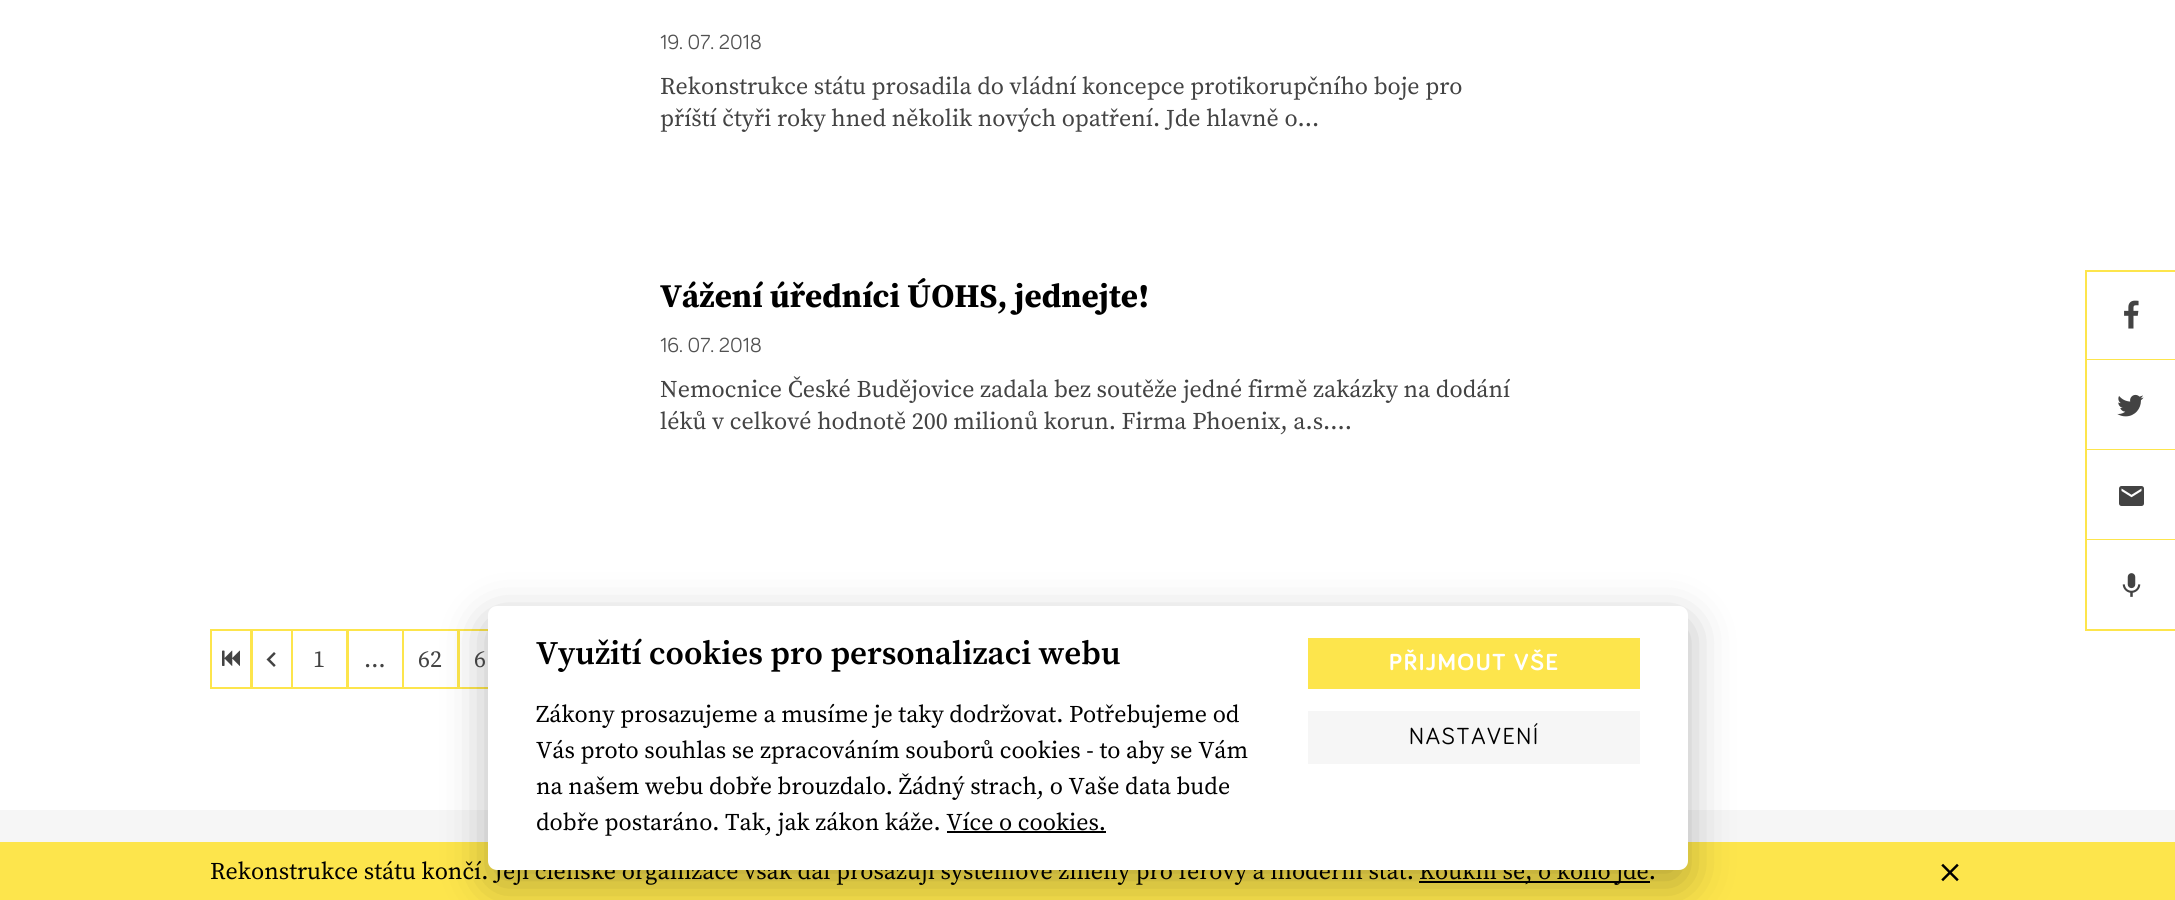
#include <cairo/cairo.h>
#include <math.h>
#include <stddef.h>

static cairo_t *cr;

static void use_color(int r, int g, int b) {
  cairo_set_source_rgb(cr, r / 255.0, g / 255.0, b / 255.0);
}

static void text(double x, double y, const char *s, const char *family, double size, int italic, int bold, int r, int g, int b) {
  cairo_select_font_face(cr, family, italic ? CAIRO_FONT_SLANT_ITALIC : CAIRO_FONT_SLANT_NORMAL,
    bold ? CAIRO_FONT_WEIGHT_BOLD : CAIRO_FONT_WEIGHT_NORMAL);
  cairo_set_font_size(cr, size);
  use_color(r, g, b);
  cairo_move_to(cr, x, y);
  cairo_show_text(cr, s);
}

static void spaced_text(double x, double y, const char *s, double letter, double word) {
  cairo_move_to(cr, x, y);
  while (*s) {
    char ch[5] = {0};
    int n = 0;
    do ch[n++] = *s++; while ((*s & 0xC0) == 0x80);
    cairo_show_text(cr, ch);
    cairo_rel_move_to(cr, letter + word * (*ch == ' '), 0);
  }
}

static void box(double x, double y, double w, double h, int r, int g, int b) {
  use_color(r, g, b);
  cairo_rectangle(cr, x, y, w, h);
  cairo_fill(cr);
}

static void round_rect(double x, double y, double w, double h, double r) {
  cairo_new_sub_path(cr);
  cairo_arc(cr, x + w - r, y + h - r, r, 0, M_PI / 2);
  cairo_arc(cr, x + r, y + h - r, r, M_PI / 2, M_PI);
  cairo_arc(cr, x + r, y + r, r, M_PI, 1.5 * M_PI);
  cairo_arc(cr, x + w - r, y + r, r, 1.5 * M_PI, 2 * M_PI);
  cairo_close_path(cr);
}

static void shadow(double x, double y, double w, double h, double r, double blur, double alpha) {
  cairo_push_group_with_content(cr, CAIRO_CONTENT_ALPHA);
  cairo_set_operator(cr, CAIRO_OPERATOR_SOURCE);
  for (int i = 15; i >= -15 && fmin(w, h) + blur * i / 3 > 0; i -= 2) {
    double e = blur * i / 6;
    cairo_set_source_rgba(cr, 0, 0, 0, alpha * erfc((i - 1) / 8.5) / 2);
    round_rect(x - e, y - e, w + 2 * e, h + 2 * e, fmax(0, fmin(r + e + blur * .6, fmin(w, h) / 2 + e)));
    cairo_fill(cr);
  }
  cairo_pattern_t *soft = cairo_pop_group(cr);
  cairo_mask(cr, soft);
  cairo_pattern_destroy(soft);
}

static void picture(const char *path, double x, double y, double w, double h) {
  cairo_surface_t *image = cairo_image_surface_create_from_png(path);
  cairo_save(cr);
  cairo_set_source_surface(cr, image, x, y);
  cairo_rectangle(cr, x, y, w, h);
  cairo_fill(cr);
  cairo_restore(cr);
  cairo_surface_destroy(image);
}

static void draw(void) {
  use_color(255, 255, 255);
  cairo_paint(cr);
  cairo_rectangle(cr, 211, 630, 40, 58);
  use_color(253, 229, 76);
  cairo_stroke(cr);
  picture("img_01.png", 222, 650, 18, 16);
  cairo_rectangle(cr, 252, 630, 40, 58);
  cairo_stroke(cr);
  picture("img_02.png", 266, 652, 10, 15);
  cairo_rectangle(cr, 292, 630, 55, 58);
  cairo_stroke(cr);
  cairo_rectangle(cr, 348, 630, 55, 58);
  cairo_stroke(cr);
  cairo_rectangle(cr, 403, 630, 55, 58);
  cairo_stroke(cr);
  cairo_rectangle(cr, 459, 630, 55, 58);
  cairo_stroke(cr);
  box(2085, 270, 90, 2, 253, 229, 76);
  box(2085, 359, 90, 1, 253, 229, 76);
  box(2085, 270, 2, 90, 253, 229, 76);
  picture("img_03.png", 2124, 300, 15, 29);
  box(2085, 449, 90, 1, 253, 229, 76);
  box(2085, 360, 2, 90, 253, 229, 76);
  picture("img_04.png", 2117, 394, 27, 23);
  box(2085, 539, 90, 1, 253, 229, 76);
  box(2085, 450, 2, 90, 253, 229, 76);
  picture("img_05.png", 2119, 486, 25, 20);
  box(2085, 629, 90, 2, 253, 229, 76);
  box(2085, 540, 2, 90, 253, 229, 76);
  picture("img_06.png", 2122, 573, 19, 24);
  box(0, 810, 2175, 32, 246, 246, 246);
  box(0, 842, 2175, 58, 253, 229, 76);
  box(1419, 881, 231, 2, 0, 0, 0);
  use_color(2, 2, 3);
  shadow(488, 621, 1200, 264, 9, 22.5, 0.28);
  picture("img_07.png", 1941, 863, 18, 19);
  text(660, 49, "19. 07. 2018", "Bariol", 21, 0, 0, 81, 81, 81);
  text(660, 94, "Rekonstrukce státu prosadila do vládní koncepce protikorupčního boje pro", "Source Serif Pro", 24, 0, 0, 67, 67, 67);
  text(660, 126, "příští čtyři roky hned několik nových opatření. Jde hlavně o...", "Source Serif Pro", 24, 0, 0, 67, 67, 67);
  text(660, 307, "Vážení úředníci ÚOHS, jednejte!", "Source Serif Pro", 33, 0, 1, 0, 0, 0);
  text(660, 352, "16. 07. 2018", "Bariol", 21, 0, 0, 81, 81, 81);
  text(660, 397, "Nemocnice České Budějovice zadala bez soutěže jedné firmě zakázky na dodání", "Source Serif Pro", 24, 0, 0, 67, 67, 67);
  text(660, 429, "léků v celkové hodnotě 200 milionů korun. Firma Phoenix, a.s....", "Source Serif Pro", 24, 0, 0, 67, 67, 67);
  text(313, 667, "1", "Source Serif Pro", 24, 0, 0, 67, 67, 67);
  text(364, 667, "…", "Source Serif Pro", 24, 0, 0, 67, 67, 67);
  text(418, 667, "62", "Source Serif Pro", 24, 0, 0, 67, 67, 67);
  text(474, 667, "6", "Source Serif Pro", 24, 0, 0, 67, 67, 67);
  text(210, 879, "Rekonstrukce státu končí. Její členské organizace však dál prosazují systémové změny pro férový a moderní stát.", "Source Serif Pro", 24, 0, 0, 0, 0, 0);
  text(1419, 879, "Koukni se, o koho jde.", "Source Serif Pro", 24, 0, 0, 0, 0, 0);
  use_color(255, 255, 255);
  round_rect(488, 606, 1200, 264, 9);
  cairo_fill(cr);
  box(1308, 638, 332, 51, 253, 229, 76);
  cairo_select_font_face(cr, "Bariol", CAIRO_FONT_SLANT_NORMAL, CAIRO_FONT_WEIGHT_BOLD);
  use_color(255, 255, 255);
  spaced_text(1389, 670, "PŘIJMOUT VŠE", 1.5, 0);
  box(947, 831, 159, 2, 0, 0, 0);
  text(536, 830, "dobře postaráno. Tak, jak zákon káže. Více o cookies.", "Source Serif Pro", 24, 0, 0, 0, 0, 0);
  text(536, 794, "na našem webu dobře brouzdalo. Žádný strach, o Vaše data bude", "Source Serif Pro", 24, 0, 0, 0, 0, 0);
  text(536, 758, "Vás proto souhlas se zpracováním souborů cookies - to aby se Vám", "Source Serif Pro", 24, 0, 0, 0, 0, 0);
  text(536, 722, "Zákony prosazujeme a musíme je taky dodržovat. Potřebujeme od", "Source Serif Pro", 24, 0, 0, 0, 0, 0);
  text(536, 664, "Využití cookies pro personalizaci webu", "Source Serif Pro SemiBold", 33, 0, 0, 0, 0, 0);
  box(1308, 711, 332, 53, 246, 246, 246);
  cairo_select_font_face(cr, "Bariol", CAIRO_FONT_SLANT_NORMAL, CAIRO_FONT_WEIGHT_NORMAL);
  cairo_set_font_size(cr, 24);
  use_color(0, 0, 0);
  spaced_text(1409, 744, "NASTAVENÍ", 1.5, 0);
}

int main(void) {
  cairo_surface_t *surface = cairo_image_surface_create(CAIRO_FORMAT_RGB24, 2175, 900);
  cr = cairo_create(surface);
  cairo_font_options_t *options = cairo_font_options_create();
  cairo_font_options_set_hint_metrics(options, CAIRO_HINT_METRICS_OFF);
  cairo_font_options_set_hint_style(options, CAIRO_HINT_STYLE_NONE);
  cairo_set_font_options(cr, options);
  cairo_set_miter_limit(cr, 4);
  draw();
  cairo_surface_write_to_png(surface, "out.png");
  cairo_font_options_destroy(options);
  cairo_destroy(cr);
  cairo_surface_destroy(surface);
  return 0;
}
